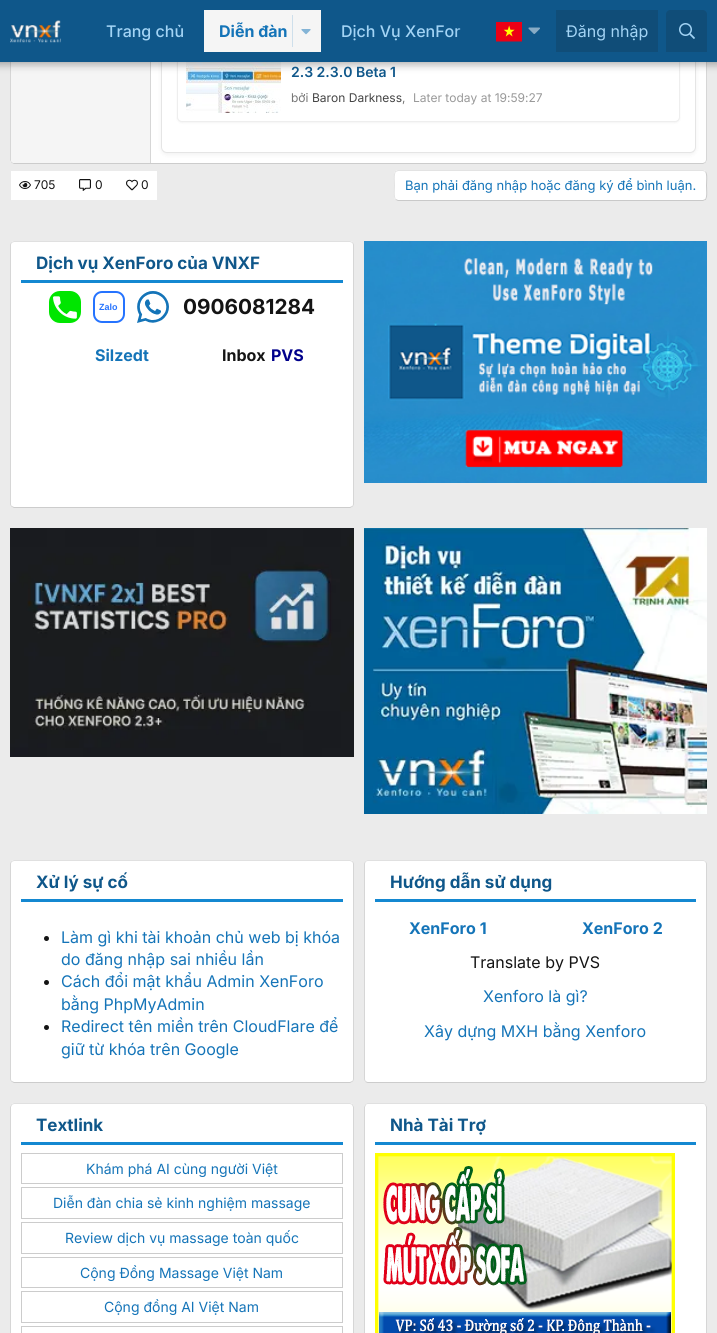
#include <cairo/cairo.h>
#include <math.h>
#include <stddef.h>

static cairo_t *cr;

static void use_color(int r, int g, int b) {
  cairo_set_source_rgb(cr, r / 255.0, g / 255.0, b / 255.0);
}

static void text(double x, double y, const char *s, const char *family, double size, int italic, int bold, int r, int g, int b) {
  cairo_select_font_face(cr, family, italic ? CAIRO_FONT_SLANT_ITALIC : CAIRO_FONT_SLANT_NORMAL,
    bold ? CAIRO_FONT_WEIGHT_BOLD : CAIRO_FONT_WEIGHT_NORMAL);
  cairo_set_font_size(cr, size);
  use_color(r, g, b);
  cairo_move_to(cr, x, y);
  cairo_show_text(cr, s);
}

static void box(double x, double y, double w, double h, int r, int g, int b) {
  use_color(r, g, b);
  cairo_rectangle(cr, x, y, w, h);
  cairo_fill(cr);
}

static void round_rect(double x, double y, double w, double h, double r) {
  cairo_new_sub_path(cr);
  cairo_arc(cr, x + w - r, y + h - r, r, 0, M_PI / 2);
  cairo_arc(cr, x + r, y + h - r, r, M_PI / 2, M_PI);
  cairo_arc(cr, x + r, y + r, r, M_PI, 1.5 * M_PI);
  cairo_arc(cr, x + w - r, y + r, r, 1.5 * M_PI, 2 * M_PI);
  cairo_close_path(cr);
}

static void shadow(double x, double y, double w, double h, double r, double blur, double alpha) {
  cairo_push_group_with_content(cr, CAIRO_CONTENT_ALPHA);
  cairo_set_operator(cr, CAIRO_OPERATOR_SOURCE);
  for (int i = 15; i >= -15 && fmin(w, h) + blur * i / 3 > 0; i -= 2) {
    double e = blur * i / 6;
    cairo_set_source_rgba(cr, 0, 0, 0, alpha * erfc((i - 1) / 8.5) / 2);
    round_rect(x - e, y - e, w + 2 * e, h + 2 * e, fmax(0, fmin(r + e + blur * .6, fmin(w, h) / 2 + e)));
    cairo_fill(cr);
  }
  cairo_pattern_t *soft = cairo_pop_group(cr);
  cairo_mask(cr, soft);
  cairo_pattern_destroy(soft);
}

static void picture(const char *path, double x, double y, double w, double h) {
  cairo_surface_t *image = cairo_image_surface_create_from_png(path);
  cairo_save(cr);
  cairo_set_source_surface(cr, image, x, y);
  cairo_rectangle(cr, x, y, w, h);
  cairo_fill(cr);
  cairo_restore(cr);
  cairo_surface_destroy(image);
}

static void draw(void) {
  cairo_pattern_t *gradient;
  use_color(235, 235, 235);
  cairo_paint(cr);
  use_color(255, 255, 255);
  round_rect(10, -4, 697, 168, 4);
  cairo_fill(cr);
  cairo_new_path(cr);
  cairo_move_to(cr, 705.5, -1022.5);
  cairo_line_to(cr, 706.5, -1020);
  cairo_line_to(cr, 706.5, 160);
  cairo_line_to(cr, 705.5, 162.5);
  use_color(214, 214, 214);
  cairo_set_line_width(cr, 1);
  cairo_stroke(cr);
  cairo_new_path(cr);
  cairo_move_to(cr, 705.5, 162.5);
  cairo_line_to(cr, 703, 163.5);
  cairo_line_to(cr, 14, 163.5);
  cairo_line_to(cr, 11.5, 162.5);
  use_color(204, 204, 204);
  cairo_stroke(cr);
  cairo_new_path(cr);
  cairo_move_to(cr, 11.5, 162.5);
  cairo_line_to(cr, 10.5, 160);
  cairo_line_to(cr, 10.5, -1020);
  cairo_line_to(cr, 11.5, -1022.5);
  use_color(214, 214, 214);
  cairo_stroke(cr);
  use_color(245, 245, 245);
  cairo_new_path(cr);
  cairo_move_to(cr, 14, -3);
  cairo_line_to(cr, 151, -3);
  cairo_line_to(cr, 151, 163);
  cairo_line_to(cr, 14, 163);
  cairo_curve_to(cr, 12.5, 163, 11, 161.5, 11, 160);
  cairo_line_to(cr, 11, 0);
  cairo_curve_to(cr, 11, -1.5, 12.5, -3, 14, -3);
  cairo_close_path(cr);
  cairo_fill(cr);
  box(150, 62, 1, 101, 214, 214, 214);
  use_color(0, 0, 0);
  shadow(161, -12, 535, 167, 6, 2, 0.05);
  use_color(255, 255, 255);
  round_rect(161.5, -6.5, 534, 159, 5.5);
  cairo_fill_preserve(cr);
  use_color(229, 229, 229);
  cairo_stroke(cr);
  use_color(0, 0, 0);
  shadow(177, 34, 503, 89, 5, 1, 0.05);
  use_color(255, 255, 255);
  round_rect(177.5, 33.5, 502, 88, 4.5);
  cairo_fill_preserve(cr);
  use_color(238, 238, 238);
  cairo_stroke(cr);
  picture("img_06.png", 186, 62, 95, 51);
  use_color(0, 0, 0);
  shadow(-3, -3, 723, 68, 0, 4, 0.3);
  box(0, 0, 717, 62, 15, 87, 138);
  picture("img_01.png", 10, 20, 51, 23);
  box(204, 10, 117, 42, 245, 245, 245);
  box(292, 15, 1, 32, 206, 223, 235);
  picture("img_02.png", 301, 29, 10, 6);
  picture("img_03.png", 496, 22, 26, 20);
  picture("img_04.png", 528, 27, 12, 7);
  box(556, 10, 102, 42, 16, 77, 120);
  cairo_new_path(cr);
  cairo_move_to(cr, 670, 10);
  cairo_line_to(cr, 703, 10);
  cairo_curve_to(cr, 705, 10, 707, 12, 707, 14);
  cairo_line_to(cr, 707, 52);
  cairo_line_to(cr, 666, 52);
  cairo_line_to(cr, 666, 14);
  cairo_curve_to(cr, 666, 12, 668, 10, 670, 10);
  cairo_close_path(cr);
  cairo_fill(cr);
  picture("img_05.png", 679, 23, 16, 16);
  box(11, 171, 146, 29, 255, 255, 255);
  picture("img_07.png", 19, 181, 12, 8);
  picture("img_08.png", 79, 179, 12, 12);
  picture("img_09.png", 126, 179, 12, 12);
  round_rect(394, 170, 313, 31, 4);
  cairo_fill(cr);
  cairo_new_path(cr);
  cairo_move_to(cr, 705.5, 171.5);
  cairo_curve_to(cr, 707.5, 174, 706.5, 182.5, 706.5, 185.5);
  cairo_curve_to(cr, 706.5, 188.5, 707.5, 197, 705.5, 199.5);
  cairo_line_to(cr, 703, 200.5);
  cairo_line_to(cr, 398, 200.5);
  cairo_line_to(cr, 395.5, 199.5);
  use_color(201, 201, 201);
  cairo_stroke(cr);
  cairo_new_path(cr);
  cairo_move_to(cr, 395.5, 199.5);
  cairo_curve_to(cr, 393.5, 197, 394.5, 188.5, 394.5, 185.5);
  cairo_curve_to(cr, 394.5, 182.5, 393.5, 174, 395.5, 171.5);
  cairo_line_to(cr, 398, 170.5);
  cairo_line_to(cr, 703, 170.5);
  cairo_line_to(cr, 705.5, 171.5);
  use_color(227, 227, 227);
  cairo_stroke(cr);
  use_color(255, 255, 255);
  round_rect(10, 241, 344, 267, 4);
  cairo_fill(cr);
  cairo_new_path(cr);
  cairo_move_to(cr, 11.5, 242.5);
  cairo_line_to(cr, 14, 241.5);
  cairo_line_to(cr, 350, 241.5);
  cairo_line_to(cr, 352.5, 242.5);
  use_color(224, 224, 224);
  cairo_stroke(cr);
  cairo_new_path(cr);
  cairo_move_to(cr, 352.5, 242.5);
  cairo_curve_to(cr, 353, 243, 353.5, 244, 353.5, 245);
  cairo_line_to(cr, 353.5, 504);
  cairo_curve_to(cr, 353.5, 505, 353, 506, 352.5, 506.5);
  use_color(214, 214, 214);
  cairo_stroke(cr);
  cairo_new_path(cr);
  cairo_move_to(cr, 352.5, 506.5);
  cairo_line_to(cr, 350, 507.5);
  cairo_line_to(cr, 14, 507.5);
  cairo_line_to(cr, 11.5, 506.5);
  use_color(204, 204, 204);
  cairo_stroke(cr);
  cairo_new_path(cr);
  cairo_move_to(cr, 11.5, 506.5);
  cairo_curve_to(cr, 11, 506, 10.5, 505, 10.5, 504);
  cairo_line_to(cr, 10.5, 245);
  cairo_curve_to(cr, 10.5, 244, 11, 243, 11.5, 242.5);
  use_color(214, 214, 214);
  cairo_stroke(cr);
  box(21, 280, 322, 3, 20, 136, 209);
  picture("img_10.png", 49, 291, 32, 32);
  round_rect(94, 292, 30, 30, 8);
  use_color(37, 115, 255);
  cairo_set_line_width(cr, 2);
  cairo_stroke(cr);
  picture("img_11.png", 137, 291, 32, 32);
  picture("img_12.png", 364, 241, 343, 242);
  picture("img_13.png", 10, 528, 344, 229);
  picture("img_14.png", 364, 528, 343, 286);
  use_color(255, 255, 255);
  round_rect(10, 860, 344, 223, 4);
  cairo_fill(cr);
  cairo_new_path(cr);
  cairo_move_to(cr, 11.5, 861.5);
  cairo_line_to(cr, 14, 860.5);
  cairo_line_to(cr, 350, 860.5);
  cairo_line_to(cr, 352.5, 861.5);
  use_color(224, 224, 224);
  cairo_set_line_width(cr, 1);
  cairo_stroke(cr);
  cairo_new_path(cr);
  cairo_move_to(cr, 352.5, 861.5);
  cairo_curve_to(cr, 353, 862, 353.5, 863, 353.5, 864);
  cairo_line_to(cr, 353.5, 1079);
  cairo_curve_to(cr, 353.5, 1080, 353, 1081, 352.5, 1081.5);
  use_color(214, 214, 214);
  cairo_stroke(cr);
  cairo_new_path(cr);
  cairo_move_to(cr, 352.5, 1081.5);
  cairo_line_to(cr, 350, 1082.5);
  cairo_line_to(cr, 14, 1082.5);
  cairo_line_to(cr, 11.5, 1081.5);
  use_color(204, 204, 204);
  cairo_stroke(cr);
  cairo_new_path(cr);
  cairo_move_to(cr, 11.5, 1081.5);
  cairo_curve_to(cr, 11, 1081, 10.5, 1080, 10.5, 1079);
  cairo_line_to(cr, 10.5, 864);
  cairo_curve_to(cr, 10.5, 863, 11, 862, 11.5, 861.5);
  use_color(214, 214, 214);
  cairo_stroke(cr);
  box(21, 899, 322, 3, 20, 136, 209);
  use_color(20, 20, 20);
  cairo_arc(cr, 46.5, 938.5, 2.5, 0, 2 * M_PI);
  cairo_fill(cr);
  cairo_arc(cr, 46.5, 982.5, 2.5, 0, 2 * M_PI);
  cairo_fill(cr);
  cairo_arc(cr, 46.5, 1027.5, 2.5, 0, 2 * M_PI);
  cairo_fill(cr);
  use_color(255, 255, 255);
  round_rect(364, 860, 343, 223, 4);
  cairo_fill(cr);
  cairo_new_path(cr);
  cairo_move_to(cr, 365.5, 861.5);
  cairo_curve_to(cr, 366, 861, 367, 860.5, 368, 860.5);
  cairo_line_to(cr, 703, 860.5);
  cairo_curve_to(cr, 704, 860.5, 705, 861, 705.5, 861.5);
  use_color(224, 224, 224);
  cairo_stroke(cr);
  cairo_new_path(cr);
  cairo_move_to(cr, 705.5, 861.5);
  cairo_curve_to(cr, 706, 862, 706.5, 863, 706.5, 864);
  cairo_line_to(cr, 706.5, 1079);
  cairo_curve_to(cr, 706.5, 1080, 706, 1081, 705.5, 1081.5);
  use_color(214, 214, 214);
  cairo_stroke(cr);
  cairo_new_path(cr);
  cairo_move_to(cr, 705.5, 1081.5);
  cairo_curve_to(cr, 705, 1082, 704, 1082.5, 703, 1082.5);
  cairo_line_to(cr, 368, 1082.5);
  cairo_curve_to(cr, 367, 1082.5, 366, 1082, 365.5, 1081.5);
  use_color(204, 204, 204);
  cairo_stroke(cr);
  cairo_new_path(cr);
  cairo_move_to(cr, 365.5, 1081.5);
  cairo_curve_to(cr, 365, 1081, 364.5, 1080, 364.5, 1079);
  cairo_line_to(cr, 364.5, 864);
  cairo_curve_to(cr, 364.5, 863, 365, 862, 365.5, 861.5);
  use_color(214, 214, 214);
  cairo_stroke(cr);
  box(375, 899, 321, 3, 20, 136, 209);
  use_color(255, 255, 255);
  round_rect(10, 1103, 344, 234, 4);
  cairo_fill(cr);
  cairo_new_path(cr);
  cairo_move_to(cr, 11.5, 1104.5);
  cairo_line_to(cr, 14, 1103.5);
  cairo_line_to(cr, 350, 1103.5);
  cairo_line_to(cr, 352.5, 1104.5);
  use_color(224, 224, 224);
  cairo_stroke(cr);
  cairo_new_path(cr);
  cairo_move_to(cr, 352.5, 1104.5);
  cairo_line_to(cr, 353.5, 1107);
  cairo_line_to(cr, 353.5, 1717);
  cairo_line_to(cr, 352.5, 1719.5);
  use_color(214, 214, 214);
  cairo_stroke(cr);
  cairo_new_path(cr);
  cairo_move_to(cr, 11.5, 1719.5);
  cairo_line_to(cr, 10.5, 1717);
  cairo_line_to(cr, 10.5, 1107);
  cairo_line_to(cr, 11.5, 1104.5);
  cairo_stroke(cr);
  box(21, 1142, 322, 3, 20, 136, 209);
  cairo_rectangle(cr, 21.5, 1153.5, 321, 30);
  use_color(204, 204, 204);
  cairo_stroke(cr);
  cairo_rectangle(cr, 21.5, 1187.5, 321, 31);
  cairo_stroke(cr);
  cairo_rectangle(cr, 21.5, 1222.5, 321, 31);
  cairo_stroke(cr);
  cairo_rectangle(cr, 21.5, 1257.5, 321, 30);
  cairo_stroke(cr);
  cairo_rectangle(cr, 21.5, 1291.5, 321, 31);
  cairo_stroke(cr);
  cairo_rectangle(cr, 21.5, 1326.5, 321, 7);
  cairo_stroke(cr);
  use_color(255, 255, 255);
  round_rect(364, 1103, 343, 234, 4);
  cairo_fill(cr);
  cairo_new_path(cr);
  cairo_move_to(cr, 365.5, 1104.5);
  cairo_curve_to(cr, 366, 1104, 367, 1103.5, 368, 1103.5);
  cairo_line_to(cr, 703, 1103.5);
  cairo_curve_to(cr, 704, 1103.5, 705, 1104, 705.5, 1104.5);
  use_color(224, 224, 224);
  cairo_stroke(cr);
  cairo_new_path(cr);
  cairo_move_to(cr, 705.5, 1104.5);
  cairo_line_to(cr, 706.5, 1107);
  cairo_line_to(cr, 706.5, 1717);
  cairo_line_to(cr, 705.5, 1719.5);
  use_color(214, 214, 214);
  cairo_stroke(cr);
  cairo_new_path(cr);
  cairo_move_to(cr, 365.5, 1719.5);
  cairo_line_to(cr, 364.5, 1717);
  cairo_line_to(cr, 364.5, 1107);
  cairo_line_to(cr, 365.5, 1104.5);
  cairo_stroke(cr);
  box(375, 1142, 321, 3, 20, 136, 209);
  picture("img_15.png", 375, 1153, 300, 180);
  text(106, 37, "Trang chủ", "Inter Medium", 16, 0, 0, 163, 212, 245);
  text(219, 37, "Diễn đàn", "Inter", 16, 0, 1, 20, 116, 184);
  text(341, 37, "Dịch Vụ XenFor", "Inter Medium", 16, 0, 0, 163, 212, 245);
  gradient = cairo_pattern_create_linear(456, 31, 496, 31);
  cairo_pattern_add_color_stop_rgba(gradient, 0, 0.059, 0.341, 0.541, 0);
  cairo_pattern_add_color_stop_rgba(gradient, 0.33, 0.059, 0.341, 0.541, 1);
  cairo_set_source(cr, gradient);
  cairo_pattern_destroy(gradient);
  cairo_rectangle(cr, 456, 28, 4, 9);
  cairo_fill(cr);
  text(566, 37, "Đăng nhập", "Inter", 16, 0, 0, 163, 212, 245);
  text(291, 77, "2.3 2.3.0 Beta 1", "Inter SemiBold", 14, 0, 0, 15, 87, 138);
  text(291, 102, "bởi", "Inter", 12, 0, 0, 119, 119, 119);
  text(312, 102, "Baron Darkness", "Inter", 12, 0, 0, 68, 68, 68);
  text(402, 102, ",", "Inter", 12, 0, 0, 119, 119, 119);
  text(413, 102, "Later today at 19:59:27", "Inter", 12, 0, 0, 153, 153, 153);
  text(34, 189, "705", "Inter", 12, 0, 0, 20, 20, 20);
  text(95, 189, "0", "Inter", 12, 0, 0, 20, 20, 20);
  text(141, 189, "0", "Inter", 12, 0, 0, 20, 20, 20);
  text(405, 190, "Bạn phải đăng nhập hoặc đăng ký để bình luận.", "Inter", 13, 0, 0, 20, 116, 184);
  text(36, 269, "Dịch vụ XenForo của VNXF", "Inter", 17, 0, 1, 15, 87, 138);
  text(99, 310, "Zalo", "Liberation Sans", 9, 0, 1, 37, 115, 255);
  text(183, 314, "0906081284", "Inter", 20.75, 0, 1, 20, 20, 20);
  text(95, 361, "Silzedt", "Inter", 16, 0, 1, 20, 116, 184);
  text(222, 361, "Inbox", "Inter", 16, 0, 1, 20, 20, 20);
  text(271, 361, "PVS", "Inter", 16, 0, 1, 0, 0, 139);
  text(36, 888, "Xử lý sự cố", "Inter", 17, 0, 1, 15, 87, 138);
  text(61, 943, "Làm gì khi tài khoản chủ web bị khóa", "Inter", 16, 0, 0, 20, 116, 184);
  text(61, 965, "do đăng nhập sai nhiều lần", "Inter", 16, 0, 0, 20, 116, 184);
  text(61, 987, "Cách đổi mật khẩu Admin XenForo", "Inter", 16, 0, 0, 20, 116, 184);
  text(61, 1010, "bằng PhpMyAdmin", "Inter", 16, 0, 0, 20, 116, 184);
  text(61, 1032, "Redirect tên miền trên CloudFlare để", "Inter", 16, 0, 0, 20, 116, 184);
  text(61, 1055, "giữ từ khóa trên Google", "Inter", 16, 0, 0, 20, 116, 184);
  text(390, 888, "Hướng dẫn sử dụng", "Inter", 17, 0, 1, 15, 87, 138);
  text(409, 934, "XenForo 1", "Inter", 16, 0, 1, 20, 116, 184);
  text(582, 934, "XenForo 2", "Inter", 16, 0, 1, 20, 116, 184);
  text(470, 968, "Translate by PVS", "Inter", 16, 0, 0, 20, 20, 20);
  text(483, 1002, "Xenforo là gì?", "Inter", 16, 0, 0, 20, 116, 184);
  text(424, 1037, "Xây dựng MXH bằng Xenforo", "Inter", 16, 0, 0, 20, 116, 184);
  text(36, 1131, "Textlink", "Inter", 17, 0, 1, 15, 87, 138);
  text(86, 1174, "Khám phá AI cùng người Việt", "Inter", 14, 0, 0, 20, 116, 184);
  text(53, 1208, "Diễn đàn chia sẻ kinh nghiệm massage", "Inter", 14, 0, 0, 20, 116, 184);
  text(65, 1243, "Review dịch vụ massage toàn quốc", "Inter", 14, 0, 0, 20, 116, 184);
  text(80, 1278, "Cộng Đồng Massage Việt Nam", "Inter", 14, 0, 0, 20, 116, 184);
  text(104, 1312, "Cộng đồng AI Việt Nam", "Inter", 14, 0, 0, 20, 116, 184);
  text(390, 1131, "Nhà Tài Trợ", "Inter", 17, 0, 1, 15, 87, 138);
}

int main(void) {
  cairo_surface_t *surface = cairo_image_surface_create(CAIRO_FORMAT_RGB24, 717, 1333);
  cr = cairo_create(surface);
  cairo_font_options_t *options = cairo_font_options_create();
  cairo_font_options_set_hint_metrics(options, CAIRO_HINT_METRICS_OFF);
  cairo_font_options_set_hint_style(options, CAIRO_HINT_STYLE_NONE);
  cairo_set_font_options(cr, options);
  cairo_set_miter_limit(cr, 4);
  draw();
  cairo_surface_write_to_png(surface, "out.png");
  cairo_font_options_destroy(options);
  cairo_destroy(cr);
  cairo_surface_destroy(surface);
  return 0;
}
